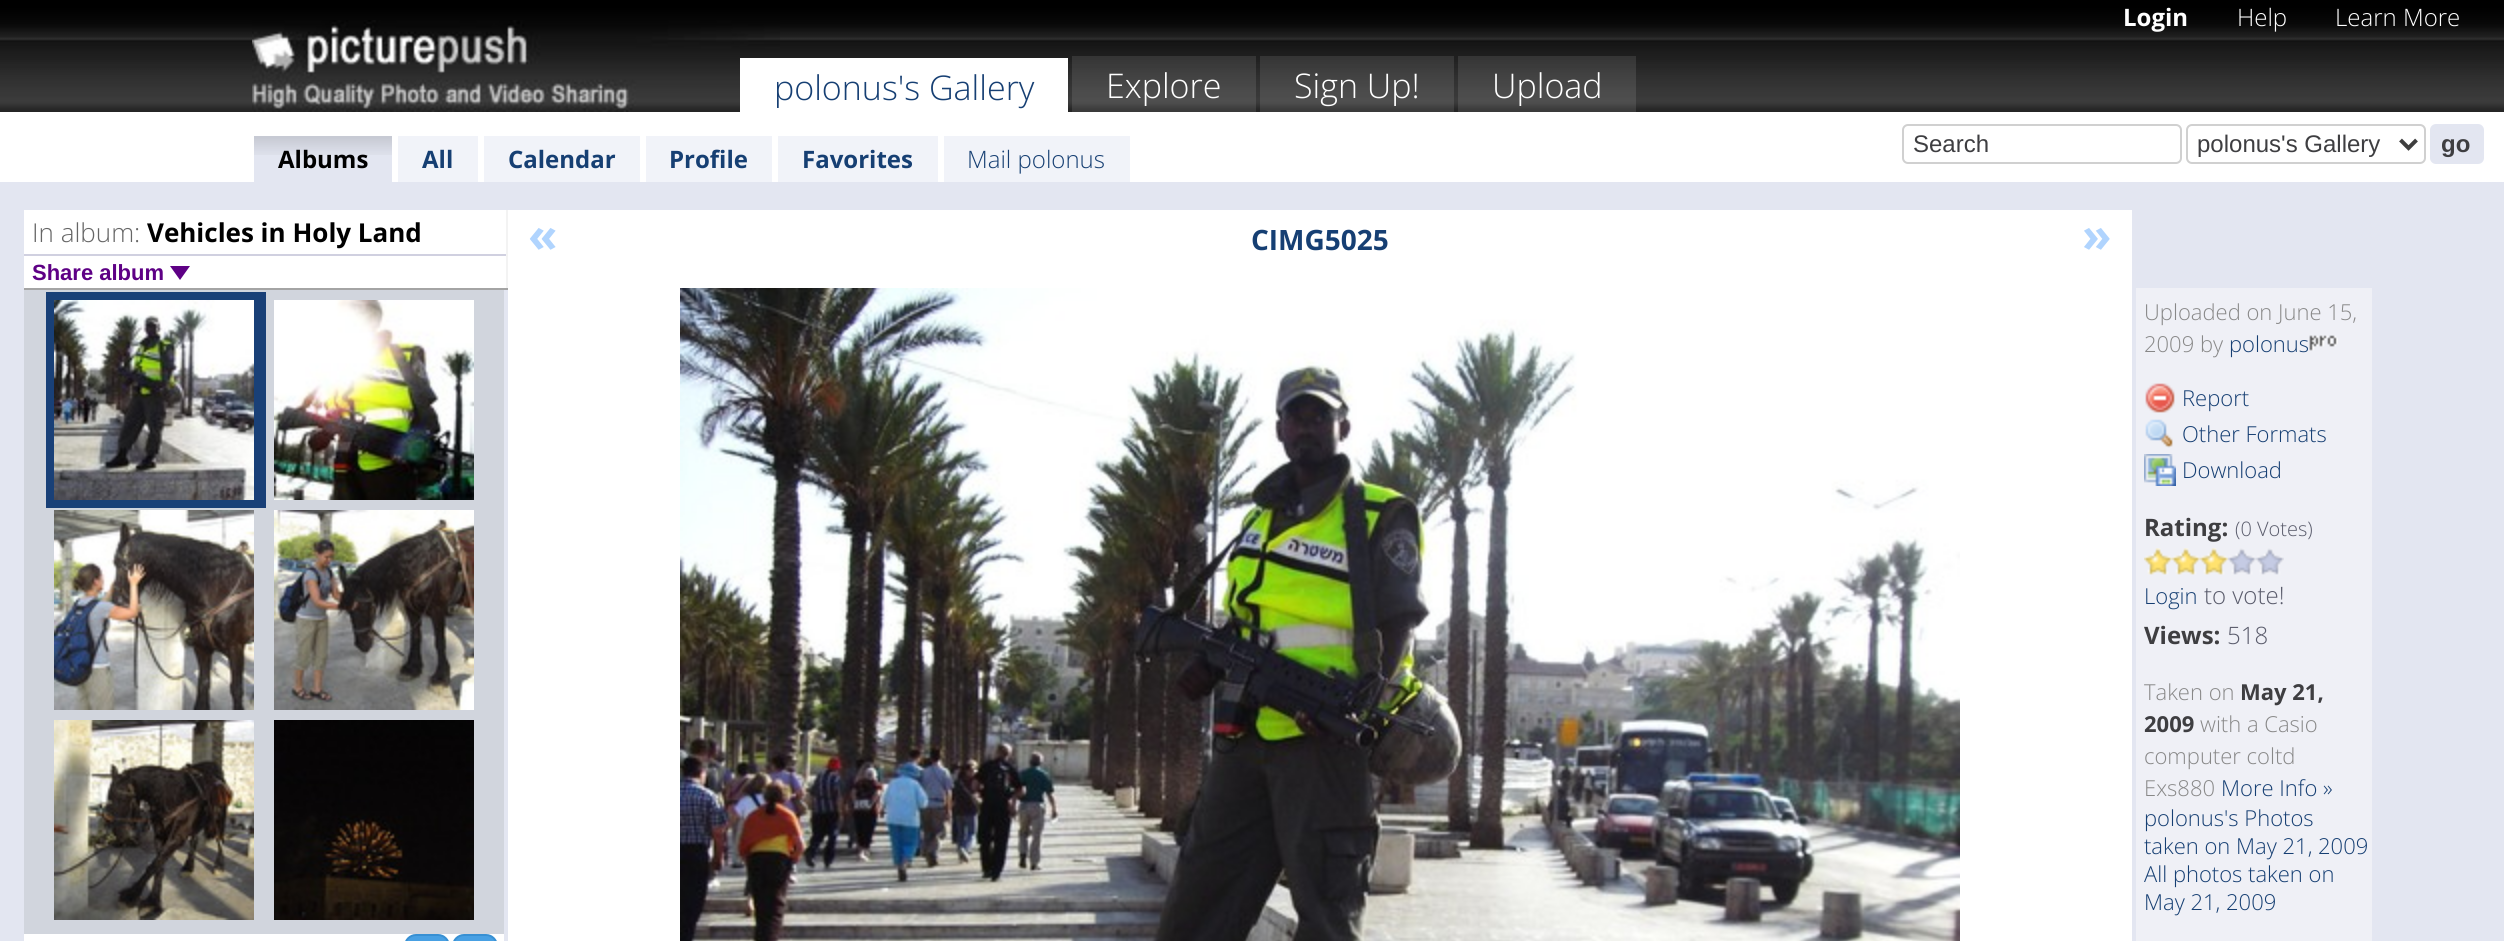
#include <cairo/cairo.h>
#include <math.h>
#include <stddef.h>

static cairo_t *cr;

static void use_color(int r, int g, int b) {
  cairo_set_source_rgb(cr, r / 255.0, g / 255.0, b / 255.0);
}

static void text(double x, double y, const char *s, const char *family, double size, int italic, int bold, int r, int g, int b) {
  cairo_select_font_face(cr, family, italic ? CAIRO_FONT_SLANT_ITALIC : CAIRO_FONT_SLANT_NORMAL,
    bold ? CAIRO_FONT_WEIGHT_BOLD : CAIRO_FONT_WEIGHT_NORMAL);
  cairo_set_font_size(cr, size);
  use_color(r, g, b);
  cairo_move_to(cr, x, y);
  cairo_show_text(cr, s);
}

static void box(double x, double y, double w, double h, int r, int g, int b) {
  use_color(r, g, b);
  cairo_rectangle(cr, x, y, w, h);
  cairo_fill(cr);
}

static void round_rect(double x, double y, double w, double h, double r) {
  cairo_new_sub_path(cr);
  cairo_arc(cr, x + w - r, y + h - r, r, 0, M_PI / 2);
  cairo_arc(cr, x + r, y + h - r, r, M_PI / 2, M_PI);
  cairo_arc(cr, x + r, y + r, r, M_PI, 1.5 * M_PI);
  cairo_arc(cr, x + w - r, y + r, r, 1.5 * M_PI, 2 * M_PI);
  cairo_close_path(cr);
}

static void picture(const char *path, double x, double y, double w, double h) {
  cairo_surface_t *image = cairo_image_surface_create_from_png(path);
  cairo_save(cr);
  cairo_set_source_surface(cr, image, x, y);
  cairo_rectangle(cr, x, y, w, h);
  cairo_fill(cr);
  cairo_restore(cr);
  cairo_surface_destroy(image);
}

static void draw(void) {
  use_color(227, 230, 241);
  cairo_paint(cr);
  picture("img_01.png", 0, 0, 2504, 112);
  picture("img_02.png", 252, 20, 528, 92);
  box(740, 58, 328, 54, 255, 255, 255);
  cairo_set_source_rgba(cr, 1, 1, 1, 0.1);
  cairo_rectangle(cr, 1072, 56, 184, 56);
  cairo_fill(cr);
  cairo_rectangle(cr, 1260, 56, 194, 56);
  cairo_fill(cr);
  cairo_rectangle(cr, 1458, 56, 178, 56);
  cairo_fill(cr);
  box(0, 112, 2504, 70, 255, 255, 255);
  round_rect(1903, 125, 278, 38, 5);
  use_color(208, 208, 208);
  cairo_stroke(cr);
  round_rect(2187, 125, 238, 38, 5);
  cairo_stroke(cr);
  cairo_new_path(cr);
  cairo_move_to(cr, 2400.5, 140);
  cairo_line_to(cr, 2408.5, 148);
  cairo_line_to(cr, 2416.5, 140);
  use_color(62, 62, 62);
  cairo_set_line_width(cr, 4);
  cairo_stroke(cr);
  use_color(227, 230, 241);
  round_rect(2431, 125, 52, 38, 5);
  cairo_fill_preserve(cr);
  cairo_set_line_width(cr, 2);
  cairo_stroke(cr);
  box(254, 136, 138, 46, 227, 230, 241);
  picture("img_03.png", 254, 136, 138, 19);
  box(398, 136, 80, 46, 241, 243, 249);
  box(484, 136, 156, 46, 241, 243, 249);
  box(646, 136, 126, 46, 241, 243, 249);
  box(778, 136, 160, 46, 241, 243, 249);
  box(944, 136, 186, 46, 241, 243, 249);
  box(24, 210, 482, 78, 255, 255, 255);
  box(506, 210, 2, 80, 243, 243, 243);
  box(24, 288, 484, 2, 164, 164, 164);
  box(24, 254, 482, 2, 208, 208, 224);
  use_color(94, 0, 133);
  cairo_new_path(cr);
  cairo_move_to(cr, 170, 266);
  cairo_line_to(cr, 190, 266);
  cairo_line_to(cr, 180, 280);
  cairo_close_path(cr);
  cairo_fill(cr);
  box(24, 290, 480, 644, 209, 213, 221);
  box(46, 292, 220, 216, 25, 64, 119);
  picture("img_04.png", 54, 300, 200, 200);
  picture("img_05.png", 274, 300, 200, 200);
  picture("img_06.png", 54, 510, 200, 200);
  picture("img_07.png", 274, 510, 200, 200);
  picture("img_08.png", 54, 720, 200, 200);
  picture("img_09.png", 274, 720, 200, 200);
  box(24, 934, 480, 7, 255, 255, 255);
  use_color(72, 160, 227);
  round_rect(405, 935, 44, 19, 11);
  cairo_fill_preserve(cr);
  use_color(56, 144, 211);
  cairo_stroke(cr);
  use_color(72, 160, 227);
  round_rect(453, 935, 44, 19, 11);
  cairo_fill_preserve(cr);
  use_color(56, 144, 211);
  cairo_stroke(cr);
  box(508, 210, 1624, 731, 255, 255, 255);
  picture("img_10.png", 680, 288, 1280, 653);
  box(2136, 288, 236, 653, 239, 240, 246);
  picture("img_11.png", 2309, 335, 29, 16);
  picture("img_12.png", 2145, 383, 30, 30);
  picture("img_13.png", 2145, 419, 28, 29);
  picture("img_14.png", 2144, 454, 32, 32);
  picture("img_15.png", 2144, 548, 28, 27);
  picture("img_15.png", 2172, 548, 28, 27);
  picture("img_15.png", 2200, 548, 28, 27);
  picture("img_16.png", 2228, 548, 28, 27);
  picture("img_16.png", 2256, 548, 28, 27);
  text(774, 100, "polonus's Gallery", "Open Sans Light", 34, 0, 0, 22, 63, 115);
  text(1106, 98, "Explore", "Open Sans Light", 34, 0, 0, 255, 255, 255);
  text(1294, 98, "Sign Up!", "Open Sans Light", 34, 0, 0, 255, 255, 255);
  text(1492, 98, "Upload", "Open Sans Light", 34, 0, 0, 255, 255, 255);
  text(2123, 26, "Login", "Open Sans", 24, 0, 1, 255, 255, 255);
  text(2237, 26, "Help", "Open Sans Light", 24, 0, 0, 255, 255, 255);
  text(2335, 26, "Learn More", "Open Sans Light", 24, 0, 0, 255, 255, 255);
  text(1913, 152, "Search", "Liberation Sans", 24, 0, 0, 62, 62, 65);
  text(2197, 152, "polonus's Gallery", "Liberation Sans", 24, 0, 0, 62, 62, 65);
  text(2441, 152, "go", "Liberation Sans", 24, 0, 1, 62, 62, 65);
  text(278, 168, "Albums", "Open Sans", 24, 0, 1, 0, 0, 0);
  text(422, 168, "All", "Open Sans", 24, 0, 1, 22, 63, 115);
  text(508, 168, "Calendar", "Open Sans", 24, 0, 1, 22, 63, 115);
  text(669, 168, "Profile", "Open Sans", 24, 0, 1, 22, 63, 115);
  text(802, 168, "Favorites", "Open Sans", 24, 0, 1, 22, 63, 115);
  text(967, 168, "Mail polonus", "Open Sans Light", 24, 0, 0, 22, 63, 115);
  text(32, 242, "In album:", "Open Sans Light", 26, 0, 0, 102, 102, 102);
  text(147, 242, "Vehicles in Holy Land", "Open Sans", 26, 0, 1, 0, 0, 0);
  text(32, 280, "Share album", "Liberation Sans", 22, 0, 1, 94, 0, 133);
  text(528, 252, "«", "Open Sans", 48, 0, 1, 176, 212, 254);
  text(1251, 250, "CIMG5025", "Open Sans", 28, 0, 1, 22, 63, 115);
  text(2082, 252, "»", "Open Sans", 48, 0, 1, 176, 212, 254);
  text(2144, 320, "Uploaded on June 15,", "Open Sans Light", 22, 0, 0, 136, 136, 136);
  text(2144, 352, "2009 by", "Open Sans Light", 22, 0, 0, 136, 136, 136);
  text(2229, 352, "polonus", "Open Sans Light", 22, 0, 0, 22, 63, 115);
  text(2182, 406, "Report", "Open Sans Light", 22, 0, 0, 22, 63, 115);
  text(2182, 442, "Other Formats", "Open Sans Light", 22, 0, 0, 22, 63, 115);
  text(2182, 478, "Download", "Open Sans Light", 22, 0, 0, 22, 63, 115);
  text(2144, 536, "Rating:", "Open Sans", 24, 0, 1, 62, 62, 65);
  text(2235, 536, "(0 Votes)", "Open Sans Light", 20, 0, 0, 90, 92, 108);
  text(2144, 604, "Login", "Open Sans Light", 22, 0, 0, 22, 63, 115);
  text(2204, 604, "to vote!", "Open Sans Light", 24, 0, 0, 90, 92, 108);
  text(2144, 644, "Views:", "Open Sans", 24, 0, 1, 62, 62, 65);
  text(2227, 644, "518", "Open Sans Light", 24, 0, 0, 90, 92, 108);
  text(2144, 700, "Taken on", "Open Sans Light", 22, 0, 0, 136, 136, 136);
  text(2240, 700, "May 21,", "Open Sans", 22, 0, 1, 62, 62, 65);
  text(2144, 732, "2009", "Open Sans", 22, 0, 1, 62, 62, 65);
  text(2200, 732, "with a Casio", "Open Sans Light", 22, 0, 0, 136, 136, 136);
  text(2144, 764, "computer coltd", "Open Sans Light", 22, 0, 0, 136, 136, 136);
  text(2144, 796, "Exs880", "Open Sans Light", 22, 0, 0, 136, 136, 136);
  text(2221, 796, "More Info »", "Open Sans Light", 22, 0, 0, 22, 63, 115);
  text(2144, 826, "polonus's Photos", "Open Sans Light", 22, 0, 0, 22, 63, 115);
  text(2144, 854, "taken on May 21, 2009", "Open Sans Light", 22, 0, 0, 22, 63, 115);
  text(2144, 882, "All photos taken on", "Open Sans Light", 22, 0, 0, 22, 63, 115);
  text(2144, 910, "May 21, 2009", "Open Sans Light", 22, 0, 0, 22, 63, 115);
}

int main(void) {
  cairo_surface_t *surface = cairo_image_surface_create(CAIRO_FORMAT_RGB24, 2504, 941);
  cr = cairo_create(surface);
  cairo_font_options_t *options = cairo_font_options_create();
  cairo_font_options_set_hint_metrics(options, CAIRO_HINT_METRICS_OFF);
  cairo_font_options_set_hint_style(options, CAIRO_HINT_STYLE_NONE);
  cairo_set_font_options(cr, options);
  cairo_set_miter_limit(cr, 4);
  draw();
  cairo_surface_write_to_png(surface, "out.png");
  cairo_font_options_destroy(options);
  cairo_destroy(cr);
  cairo_surface_destroy(surface);
  return 0;
}
